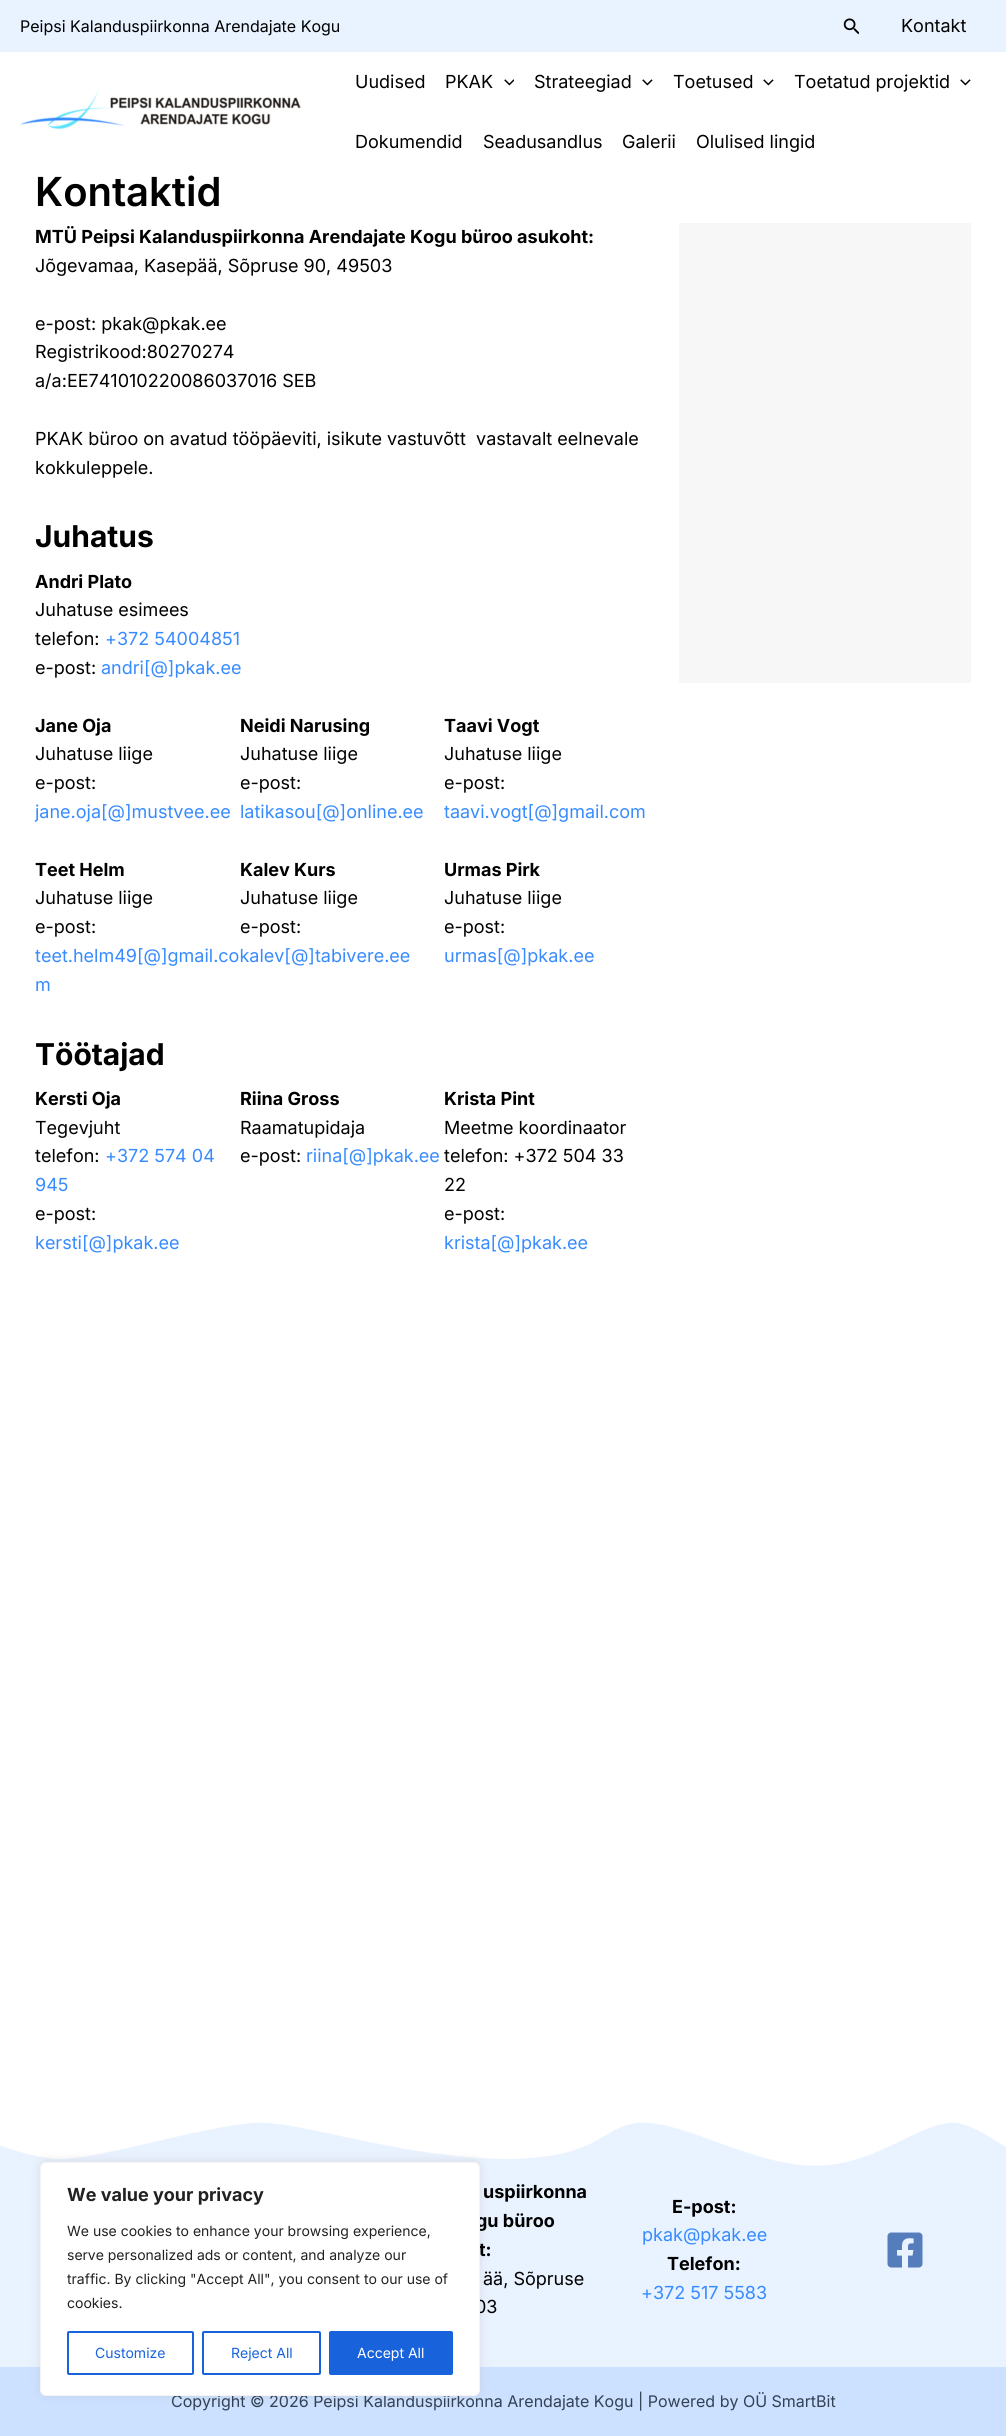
#include <cairo/cairo.h>
#include <math.h>
#include <stddef.h>

static cairo_t *cr;

static void use_color(int r, int g, int b) {
  cairo_set_source_rgb(cr, r / 255.0, g / 255.0, b / 255.0);
}

static void text(double x, double y, const char *s, const char *family, double size, int italic, int bold, int r, int g, int b) {
  cairo_select_font_face(cr, family, italic ? CAIRO_FONT_SLANT_ITALIC : CAIRO_FONT_SLANT_NORMAL,
    bold ? CAIRO_FONT_WEIGHT_BOLD : CAIRO_FONT_WEIGHT_NORMAL);
  cairo_set_font_size(cr, size);
  use_color(r, g, b);
  cairo_move_to(cr, x, y);
  cairo_show_text(cr, s);
}

static void box(double x, double y, double w, double h, int r, int g, int b) {
  use_color(r, g, b);
  cairo_rectangle(cr, x, y, w, h);
  cairo_fill(cr);
}

static void round_rect(double x, double y, double w, double h, double r) {
  cairo_new_sub_path(cr);
  cairo_arc(cr, x + w - r, y + h - r, r, 0, M_PI / 2);
  cairo_arc(cr, x + r, y + h - r, r, M_PI / 2, M_PI);
  cairo_arc(cr, x + r, y + r, r, M_PI, 1.5 * M_PI);
  cairo_arc(cr, x + w - r, y + r, r, 1.5 * M_PI, 2 * M_PI);
  cairo_close_path(cr);
}

static void shadow(double x, double y, double w, double h, double r, double blur, double alpha) {
  cairo_push_group_with_content(cr, CAIRO_CONTENT_ALPHA);
  cairo_set_operator(cr, CAIRO_OPERATOR_SOURCE);
  for (int i = 15; i >= -15 && fmin(w, h) + blur * i / 3 > 0; i -= 2) {
    double e = blur * i / 6;
    cairo_set_source_rgba(cr, 0, 0, 0, alpha * erfc((i - 1) / 8.5) / 2);
    round_rect(x - e, y - e, w + 2 * e, h + 2 * e, fmax(0, fmin(r + e + blur * .6, fmin(w, h) / 2 + e)));
    cairo_fill(cr);
  }
  cairo_pattern_t *soft = cairo_pop_group(cr);
  cairo_mask(cr, soft);
  cairo_pattern_destroy(soft);
}

static void picture(const char *path, double x, double y, double w, double h) {
  cairo_surface_t *image = cairo_image_surface_create_from_png(path);
  cairo_save(cr);
  cairo_set_source_surface(cr, image, x, y);
  cairo_rectangle(cr, x, y, w, h);
  cairo_fill(cr);
  cairo_restore(cr);
  cairo_surface_destroy(image);
}

static void draw(void) {
  use_color(255, 255, 255);
  cairo_paint(cr);
  box(0, 0, 1006, 52, 233, 242, 255);
  picture("img_01.png", 843, 18, 16, 17);
  picture("img_02.png", 20, 88, 281, 42);
  picture("img_03.png", 504, 79, 10, 7);
  picture("img_04.png", 642, 79, 11, 7);
  picture("img_04.png", 763, 79, 11, 7);
  picture("img_04.png", 960, 79, 11, 7);
  box(679, 223, 292, 460, 247, 247, 247);
  picture("img_05.png", 0, 2122, 1006, 245);
  picture("img_06.png", 887, 2232, 36, 36);
  box(0, 2367, 1006, 69, 204, 225, 255);
  use_color(172, 171, 171);
  shadow(40, 2161, 440, 234, 6, 5, 0.3);
  text(20, 32, "Peipsi Kalanduspiirkonna Arendajate Kogu", "Inter", 16, 0, 0, 0, 0, 0);
  text(901, 32, "Kontakt", "Inter", 18, 0, 0, 0, 0, 0);
  text(355, 88, "Uudised", "Inter", 18, 0, 0, 0, 0, 0);
  text(445, 88, "PKAK", "Inter", 18, 0, 0, 0, 0, 0);
  text(534, 88, "Strateegiad", "Inter", 18, 0, 0, 0, 0, 0);
  text(673, 88, "Toetused", "Inter", 18, 0, 0, 0, 0, 0);
  text(794, 88, "Toetatud projektid", "Inter", 18, 0, 0, 0, 0, 0);
  text(355, 148, "Dokumendid", "Inter", 18, 0, 0, 0, 0, 0);
  text(483, 148, "Seadusandlus", "Inter", 18, 0, 0, 0, 0, 0);
  text(622, 148, "Galerii", "Inter", 18, 0, 0, 0, 0, 0);
  text(696, 148, "Olulised lingid", "Inter", 18, 0, 0, 0, 0, 0);
  text(35, 206, "Kontaktid", "Inter SemiBold", 40, 0, 0, 0, 0, 0);
  text(35, 243, "MTÜ Peipsi Kalanduspiirkonna Arendajate Kogu büroo asukoht:", "Inter", 18, 0, 1, 0, 0, 0);
  text(35, 272, "Jõgevamaa, Kasepää, Sõpruse 90, 49503", "Inter", 18, 0, 0, 0, 0, 0);
  text(35, 330, "e-post: pkak@pkak.ee", "Inter", 18, 0, 0, 0, 0, 0);
  text(35, 358, "Registrikood:80270274", "Inter", 18, 0, 0, 0, 0, 0);
  text(35, 387, "a/a:EE741010220086037016 SEB", "Inter", 18, 0, 0, 0, 0, 0);
  text(35, 445, "PKAK büroo on avatud tööpäeviti, isikute vastuvõtt  vastavalt eelnevale", "Inter", 18, 0, 0, 0, 0, 0);
  text(35, 474, "kokkuleppele.", "Inter", 18, 0, 0, 0, 0, 0);
  text(35, 547, "Juhatus", "Inter", 30, 0, 1, 0, 0, 0);
  text(35, 588, "Andri Plato", "Inter", 18, 0, 1, 0, 0, 0);
  text(35, 616, "Juhatuse esimees", "Inter", 18, 0, 0, 0, 0, 0);
  text(35, 645, "telefon:", "Inter", 18, 0, 0, 0, 0, 0);
  text(105, 645, "+372 54004851", "Inter", 18, 0, 0, 55, 139, 255);
  text(35, 674, "e-post:", "Inter", 18, 0, 0, 0, 0, 0);
  text(101, 674, "andri[@]pkak.ee", "Inter", 18, 0, 0, 55, 139, 255);
  text(35, 732, "Jane Oja", "Inter", 18, 0, 1, 0, 0, 0);
  text(35, 760, "Juhatuse liige", "Inter", 18, 0, 0, 0, 0, 0);
  text(35, 789, "e-post:", "Inter", 18, 0, 0, 0, 0, 0);
  text(35, 818, "jane.oja[@]mustvee.ee", "Inter", 18, 0, 0, 55, 139, 255);
  text(35, 876, "Teet Helm", "Inter", 18, 0, 1, 0, 0, 0);
  text(35, 904, "Juhatuse liige", "Inter", 18, 0, 0, 0, 0, 0);
  text(35, 933, "e-post:", "Inter", 18, 0, 0, 0, 0, 0);
  text(35, 962, "teet.helm49[@]gmail.cokalev[@]tabivere.ee", "Inter", 18, 0, 0, 55, 139, 255);
  text(35, 991, "m", "Inter", 18, 0, 0, 55, 139, 255);
  text(240, 732, "Neidi Narusing", "Inter", 18, 0, 1, 0, 0, 0);
  text(240, 760, "Juhatuse liige", "Inter", 18, 0, 0, 0, 0, 0);
  text(240, 789, "e-post:", "Inter", 18, 0, 0, 0, 0, 0);
  text(240, 818, "latikasou[@]online.ee", "Inter", 18, 0, 0, 55, 139, 255);
  text(240, 876, "Kalev Kurs", "Inter", 18, 0, 1, 0, 0, 0);
  text(240, 904, "Juhatuse liige", "Inter", 18, 0, 0, 0, 0, 0);
  text(240, 933, "e-post:", "Inter", 18, 0, 0, 0, 0, 0);
  text(444, 732, "Taavi Vogt", "Inter", 18, 0, 1, 0, 0, 0);
  text(444, 760, "Juhatuse liige", "Inter", 18, 0, 0, 0, 0, 0);
  text(444, 789, "e-post:", "Inter", 18, 0, 0, 0, 0, 0);
  text(444, 818, "taavi.vogt[@]gmail.com", "Inter", 18, 0, 0, 55, 139, 255);
  text(444, 876, "Urmas Pirk", "Inter", 18, 0, 1, 0, 0, 0);
  text(444, 904, "Juhatuse liige", "Inter", 18, 0, 0, 0, 0, 0);
  text(444, 933, "e-post:", "Inter", 18, 0, 0, 0, 0, 0);
  text(444, 962, "urmas[@]pkak.ee", "Inter", 18, 0, 0, 55, 139, 255);
  text(35, 1065, "Töötajad", "Inter", 30, 0, 1, 0, 0, 0);
  text(35, 1105, "Kersti Oja", "Inter", 18, 0, 1, 0, 0, 0);
  text(35, 1134, "Tegevjuht", "Inter", 18, 0, 0, 0, 0, 0);
  text(35, 1162, "telefon:", "Inter", 18, 0, 0, 0, 0, 0);
  text(105, 1162, "+372 574 04", "Inter", 18, 0, 0, 55, 139, 255);
  text(35, 1191, "945", "Inter", 18, 0, 0, 55, 139, 255);
  text(35, 1220, "e-post:", "Inter", 18, 0, 0, 0, 0, 0);
  text(35, 1249, "kersti[@]pkak.ee", "Inter", 18, 0, 0, 55, 139, 255);
  text(240, 1105, "Riina Gross", "Inter", 18, 0, 1, 0, 0, 0);
  text(240, 1134, "Raamatupidaja", "Inter", 18, 0, 0, 0, 0, 0);
  text(240, 1162, "e-post:", "Inter", 18, 0, 0, 0, 0, 0);
  text(306, 1162, "riina[@]pkak.ee", "Inter", 18, 0, 0, 55, 139, 255);
  text(444, 1105, "Krista Pint", "Inter", 18, 0, 1, 0, 0, 0);
  text(444, 1134, "Meetme koordinaator", "Inter", 18, 0, 0, 0, 0, 0);
  text(444, 1162, "telefon: +372 504 33", "Inter", 18, 0, 0, 0, 0, 0);
  text(444, 1191, "22", "Inter", 18, 0, 0, 0, 0, 0);
  text(444, 1220, "e-post:", "Inter", 18, 0, 0, 0, 0, 0);
  text(444, 1249, "krista[@]pkak.ee", "Inter", 18, 0, 0, 55, 139, 255);
  text(483, 2198, "uspiirkonna", "Inter", 18, 0, 1, 0, 0, 0);
  text(476, 2227, "gu büroo", "Inter", 18, 0, 1, 0, 0, 0);
  text(479, 2256, "t:", "Inter", 18, 0, 1, 0, 0, 0);
  text(483, 2285, "ää, Sõpruse", "Inter", 18, 0, 0, 0, 0, 0);
  text(475, 2313, "03", "Inter", 18, 0, 0, 0, 0, 0);
  text(672, 2213, "E-post:", "Inter", 18, 0, 1, 0, 0, 0);
  text(642, 2241, "pkak@pkak.ee", "Inter", 18, 0, 0, 55, 139, 255);
  text(667, 2270, "Telefon:", "Inter", 18, 0, 1, 0, 0, 0);
  text(641, 2299, "+372 517 5583", "Inter", 18, 0, 0, 55, 139, 255);
  text(171, 2407, "Copyright © 2026 Peipsi Kalanduspiirkonna Arendajate Kogu | Powered by OÜ SmartBit", "Inter", 16, 0, 0, 51, 65, 85);
  use_color(255, 255, 255);
  round_rect(40.5, 2162.5, 439, 233, 5.5);
  cairo_fill_preserve(cr);
  use_color(244, 244, 244);
  cairo_set_line_width(cr, 1);
  cairo_stroke(cr);
  text(67, 2201, "We value your privacy", "Inter", 18, 0, 1, 33, 33, 33);
  text(67, 2236, "We use cookies to enhance your browsing experience,", "Inter", 14, 0, 0, 33, 33, 33);
  text(67, 2260, "serve personalized ads or content, and analyze our", "Inter", 14, 0, 0, 33, 33, 33);
  text(67, 2284, "traffic. By clicking \"Accept All\", you consent to our use of", "Inter", 14, 0, 0, 33, 33, 33);
  text(67, 2308, "cookies.", "Inter", 14, 0, 0, 33, 33, 33);
  round_rect(68, 2332, 125, 42, 1);
  use_color(24, 99, 220);
  cairo_set_line_width(cr, 2);
  cairo_stroke(cr);
  text(95, 2358, "Customize", "Inter", 14, 0, 0, 24, 99, 220);
  round_rect(203, 2332, 117, 42, 1);
  cairo_stroke(cr);
  text(231, 2358, "Reject All", "Inter", 14, 0, 0, 24, 99, 220);
  round_rect(330, 2332, 122, 42, 1);
  cairo_fill_preserve(cr);
  cairo_stroke(cr);
  text(357, 2358, "Accept All", "Inter", 14, 0, 0, 255, 255, 255);
}

int main(void) {
  cairo_surface_t *surface = cairo_image_surface_create(CAIRO_FORMAT_RGB24, 1006, 2436);
  cr = cairo_create(surface);
  cairo_font_options_t *options = cairo_font_options_create();
  cairo_font_options_set_hint_metrics(options, CAIRO_HINT_METRICS_OFF);
  cairo_font_options_set_hint_style(options, CAIRO_HINT_STYLE_NONE);
  cairo_set_font_options(cr, options);
  cairo_set_miter_limit(cr, 4);
  draw();
  cairo_surface_write_to_png(surface, "out.png");
  cairo_font_options_destroy(options);
  cairo_destroy(cr);
  cairo_surface_destroy(surface);
  return 0;
}
